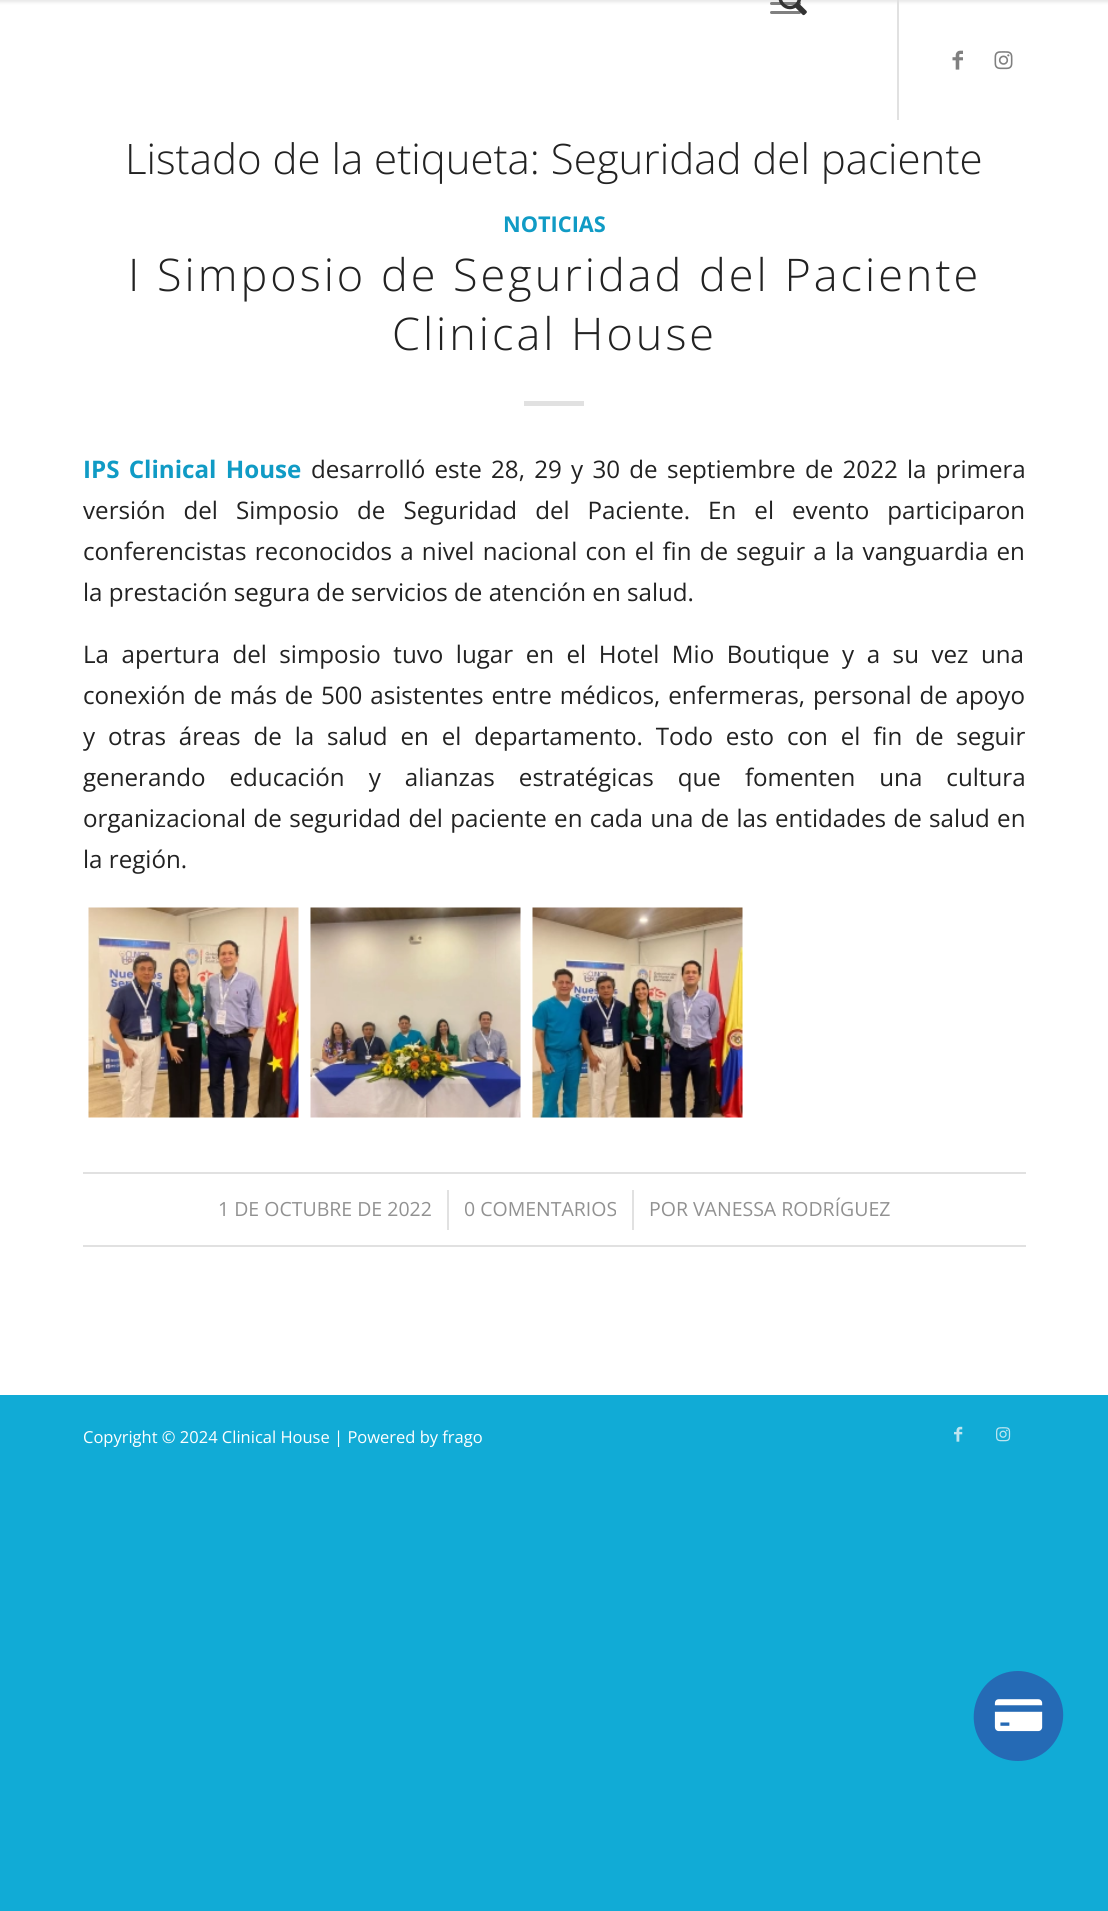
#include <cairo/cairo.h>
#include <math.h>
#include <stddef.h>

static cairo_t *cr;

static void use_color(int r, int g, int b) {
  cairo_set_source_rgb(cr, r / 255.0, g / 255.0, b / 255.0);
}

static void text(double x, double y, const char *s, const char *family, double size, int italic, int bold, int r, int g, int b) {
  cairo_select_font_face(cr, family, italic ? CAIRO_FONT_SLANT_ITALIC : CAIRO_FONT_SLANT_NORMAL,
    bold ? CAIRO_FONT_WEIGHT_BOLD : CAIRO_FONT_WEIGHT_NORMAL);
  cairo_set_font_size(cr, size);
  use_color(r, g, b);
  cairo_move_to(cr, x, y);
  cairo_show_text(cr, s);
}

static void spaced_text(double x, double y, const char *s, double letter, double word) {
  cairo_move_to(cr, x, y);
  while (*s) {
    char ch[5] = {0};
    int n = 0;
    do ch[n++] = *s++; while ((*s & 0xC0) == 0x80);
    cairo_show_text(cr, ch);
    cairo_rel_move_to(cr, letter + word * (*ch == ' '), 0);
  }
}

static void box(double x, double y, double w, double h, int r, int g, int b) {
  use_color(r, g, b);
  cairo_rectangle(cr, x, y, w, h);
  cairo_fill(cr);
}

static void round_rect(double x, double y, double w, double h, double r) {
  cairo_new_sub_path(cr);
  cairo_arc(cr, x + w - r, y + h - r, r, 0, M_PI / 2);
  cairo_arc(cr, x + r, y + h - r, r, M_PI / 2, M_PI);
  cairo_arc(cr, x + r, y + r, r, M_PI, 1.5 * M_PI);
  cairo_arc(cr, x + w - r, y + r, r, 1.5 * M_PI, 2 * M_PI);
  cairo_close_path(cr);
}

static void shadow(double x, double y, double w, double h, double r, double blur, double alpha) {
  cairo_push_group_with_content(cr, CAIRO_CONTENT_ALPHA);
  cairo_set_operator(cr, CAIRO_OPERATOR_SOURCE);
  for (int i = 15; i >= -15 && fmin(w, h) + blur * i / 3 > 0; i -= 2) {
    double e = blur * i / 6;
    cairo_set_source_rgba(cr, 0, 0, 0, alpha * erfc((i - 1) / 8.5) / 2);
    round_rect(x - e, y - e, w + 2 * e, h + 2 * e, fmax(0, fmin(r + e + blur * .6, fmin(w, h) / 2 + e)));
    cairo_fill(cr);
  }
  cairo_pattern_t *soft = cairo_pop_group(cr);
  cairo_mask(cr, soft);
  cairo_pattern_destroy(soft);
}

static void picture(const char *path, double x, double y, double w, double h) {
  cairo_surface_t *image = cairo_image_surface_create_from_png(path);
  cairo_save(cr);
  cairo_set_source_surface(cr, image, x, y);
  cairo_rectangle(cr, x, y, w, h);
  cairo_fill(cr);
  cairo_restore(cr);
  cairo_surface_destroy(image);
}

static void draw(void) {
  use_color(17, 171, 214);
  cairo_paint(cr);
  box(0, 0, 1108, 1395, 255, 255, 255);
  use_color(0, 0, 0);
  shadow(-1, -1, 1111, 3, 0, 1.5, 0.1);
  box(897, 0, 2, 120, 225, 225, 225);
  use_color(128, 128, 128);
  round_rect(770, 2, 31, 3, 1.5);
  cairo_fill(cr);
  round_rect(770, 11, 31, 3, 1.5);
  cairo_fill(cr);
  picture("img_01.png", 778, 0, 29, 16);
  picture("img_02.png", 952, 50, 11, 20);
  picture("img_03.png", 994, 51, 19, 19);
  box(524, 401, 60, 5, 225, 225, 225);
  picture("img_04.png", 88, 907, 211, 211);
  picture("img_05.png", 310, 907, 211, 211);
  picture("img_06.png", 532, 907, 211, 211);
  box(83, 1172, 943, 2, 225, 225, 225);
  box(83, 1245, 943, 2, 225, 225, 225);
  box(447, 1190, 2, 40, 225, 225, 225);
  box(632, 1190, 2, 40, 225, 225, 225);
  picture("img_07.png", 954, 1426, 9, 16);
  picture("img_08.png", 996, 1427, 15, 15);
  use_color(37, 106, 181);
  cairo_new_path(cr);
  cairo_move_to(cr, 1018, 1671);
  cairo_curve_to(cr, 973, 1671, 957, 1732, 995, 1755);
  cairo_curve_to(cr, 1002, 1759, 1010, 1761, 1018, 1761);
  cairo_curve_to(cr, 1062, 1761, 1080, 1703, 1044, 1679);
  cairo_curve_to(cr, 1036, 1674, 1027, 1671, 1018, 1671);
  cairo_close_path(cr);
  cairo_fill(cr);
  picture("img_09.png", 994, 1699, 49, 33);
  text(125, 174, "Listado de la etiqueta: Seguridad del paciente", "Open Sans Light", 42, 0, 0, 34, 34, 34);
  text(503, 232, "NOTICIAS", "Open Sans", 21.75, 0, 1, 16, 155, 197);
  cairo_select_font_face(cr, "Open Sans Light", CAIRO_FONT_SLANT_NORMAL, CAIRO_FONT_WEIGHT_NORMAL);
  cairo_set_font_size(cr, 45);
  use_color(34, 34, 34);
  spaced_text(128, 291, "I Simposio de Seguridad del Paciente", 3, 0);
  spaced_text(392, 350, "Clinical House", 3, 0);
  cairo_select_font_face(cr, "Open Sans", CAIRO_FONT_SLANT_NORMAL, CAIRO_FONT_WEIGHT_BOLD);
  cairo_set_font_size(cr, 24.15);
  use_color(16, 155, 197);
  spaced_text(83, 478, "IPS Clinical House", 0, 3);
  cairo_select_font_face(cr, "Open Sans", CAIRO_FONT_SLANT_NORMAL, CAIRO_FONT_WEIGHT_NORMAL);
  use_color(34, 34, 34);
  spaced_text(311, 478, "desarrolló este 28, 29 y 30 de septiembre de 2022 la primera", 0, 3);
  spaced_text(83, 519, "versión del Simposio de Seguridad del Paciente. En el evento participaron", 0, 11.75);
  spaced_text(83, 560, "conferencistas reconocidos a nivel nacional con el fin de seguir a la vanguardia en", 0, 1.9);
  text(83, 601, "la prestación segura de servicios de atención en salud.", "Open Sans", 24.15, 0, 0, 34, 34, 34);
  spaced_text(83, 663, "La apertura del simposio tuvo lugar en el Hotel Mio Boutique y a su vez una", 0, 6.25);
  spaced_text(83, 704, "conexión de más de 500 asistentes entre médicos, enfermeras, personal de apoyo", 0, 1.6);
  spaced_text(83, 745, "y otras áreas de la salud en el departamento. Todo esto con el fin de seguir", 0, 6.6);
  spaced_text(83, 786, "generando educación y alianzas estratégicas que fomenten una cultura", 0, 17.75);
  spaced_text(83, 827, "organizacional de seguridad del paciente en cada una de las entidades de salud en", 0, 1.1);
  text(83, 868, "la región.", "Open Sans", 24.15, 0, 0, 34, 34, 34);
  text(218, 1216, "1 DE OCTUBRE DE 2022", "Open Sans", 19.5, 0, 0, 145, 145, 145);
  text(464, 1216, "0 COMENTARIOS", "Open Sans", 19.5, 0, 0, 145, 145, 145);
  text(649, 1216, "POR VANESSA RODRÍGUEZ", "Open Sans", 19.5, 0, 0, 145, 145, 145);
  text(83, 1443, "Copyright © 2024 Clinical House | Powered by frago", "Open Sans", 16.5, 0, 0, 255, 255, 255);
}

int main(void) {
  cairo_surface_t *surface = cairo_image_surface_create(CAIRO_FORMAT_RGB24, 1108, 1911);
  cr = cairo_create(surface);
  cairo_font_options_t *options = cairo_font_options_create();
  cairo_font_options_set_hint_metrics(options, CAIRO_HINT_METRICS_OFF);
  cairo_font_options_set_hint_style(options, CAIRO_HINT_STYLE_NONE);
  cairo_set_font_options(cr, options);
  cairo_set_miter_limit(cr, 4);
  draw();
  cairo_surface_write_to_png(surface, "out.png");
  cairo_font_options_destroy(options);
  cairo_destroy(cr);
  cairo_surface_destroy(surface);
  return 0;
}
